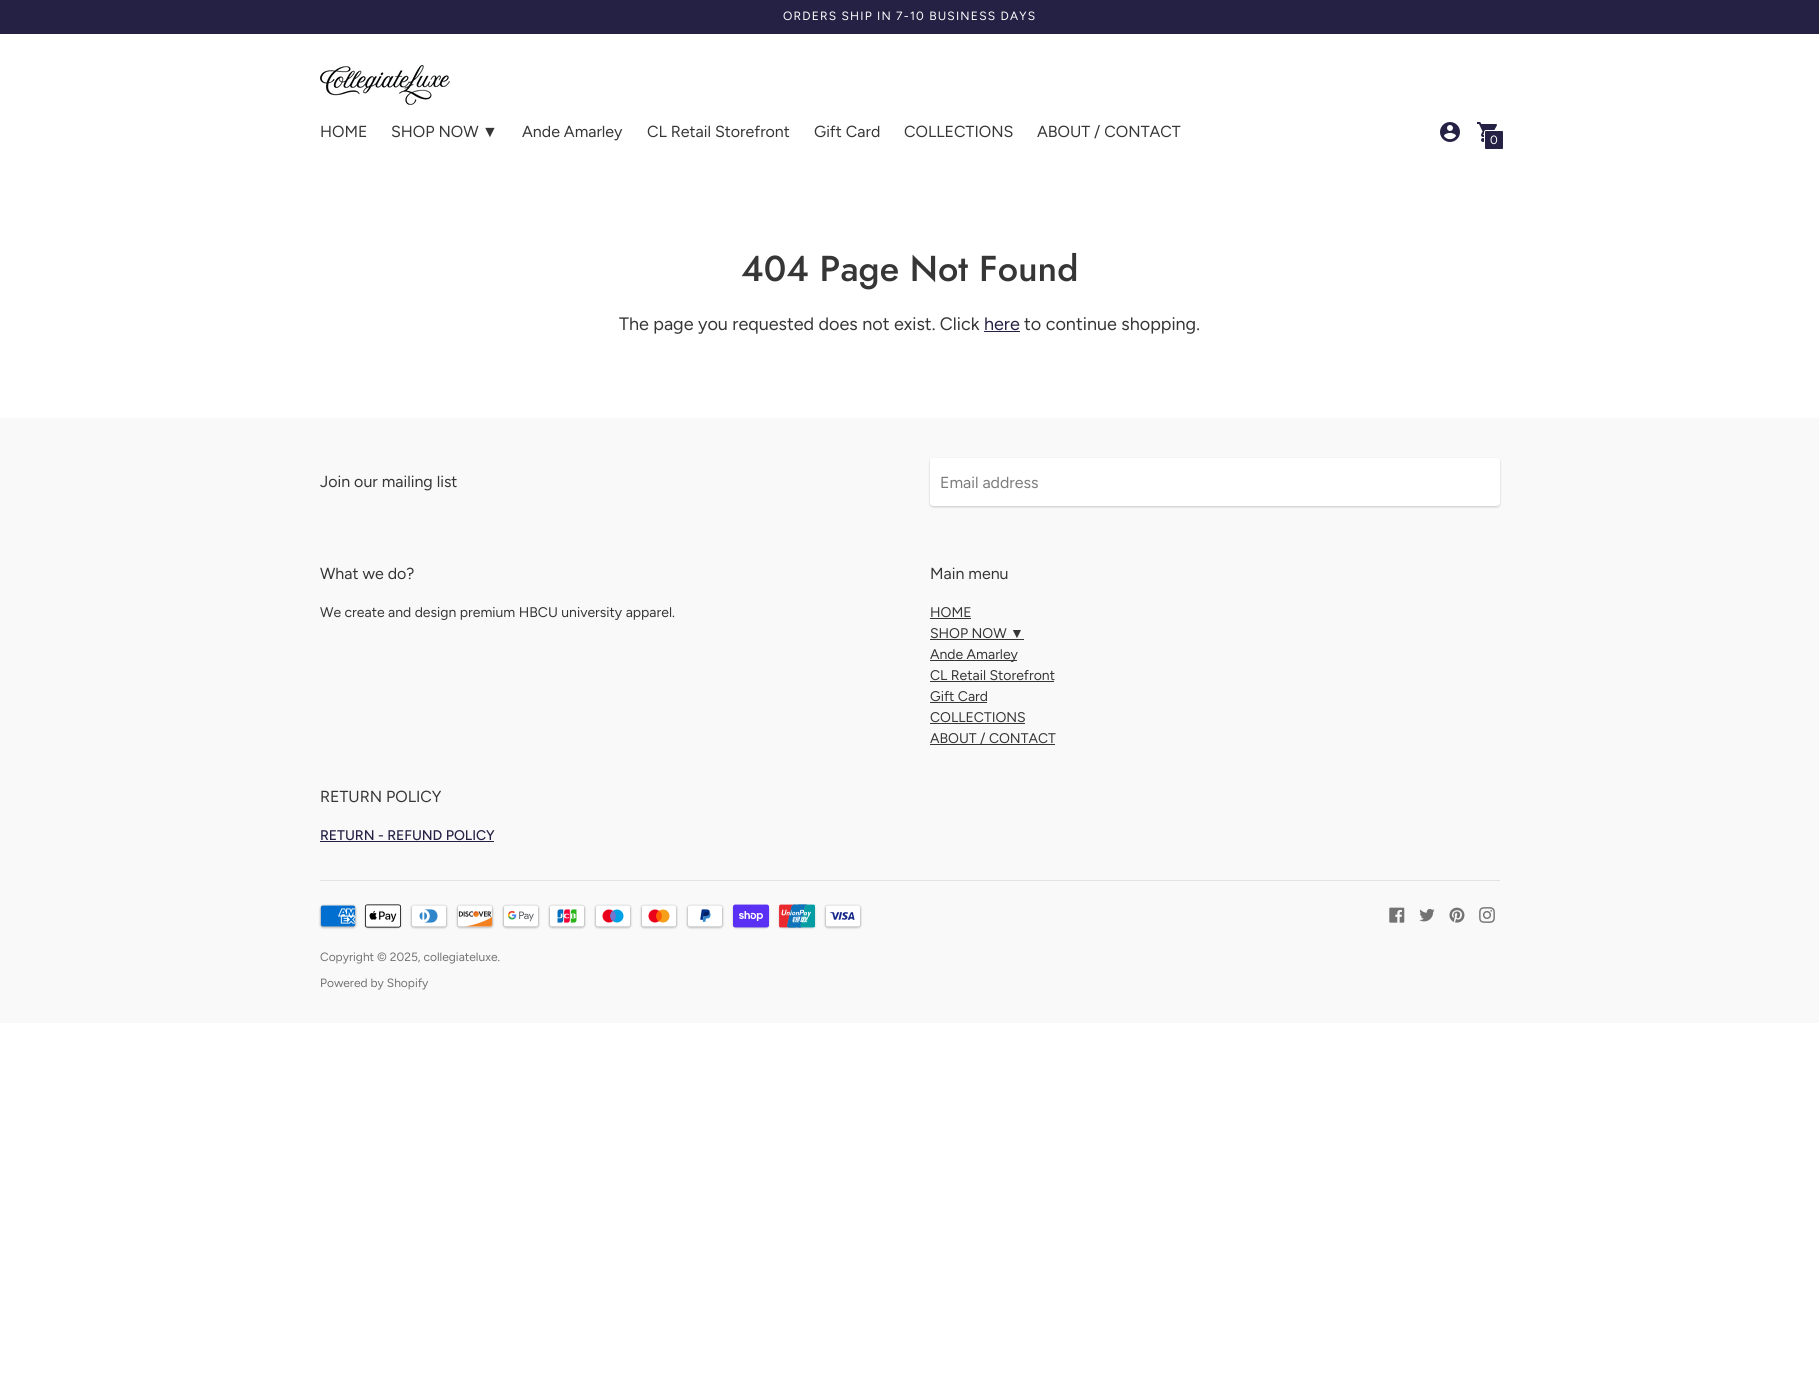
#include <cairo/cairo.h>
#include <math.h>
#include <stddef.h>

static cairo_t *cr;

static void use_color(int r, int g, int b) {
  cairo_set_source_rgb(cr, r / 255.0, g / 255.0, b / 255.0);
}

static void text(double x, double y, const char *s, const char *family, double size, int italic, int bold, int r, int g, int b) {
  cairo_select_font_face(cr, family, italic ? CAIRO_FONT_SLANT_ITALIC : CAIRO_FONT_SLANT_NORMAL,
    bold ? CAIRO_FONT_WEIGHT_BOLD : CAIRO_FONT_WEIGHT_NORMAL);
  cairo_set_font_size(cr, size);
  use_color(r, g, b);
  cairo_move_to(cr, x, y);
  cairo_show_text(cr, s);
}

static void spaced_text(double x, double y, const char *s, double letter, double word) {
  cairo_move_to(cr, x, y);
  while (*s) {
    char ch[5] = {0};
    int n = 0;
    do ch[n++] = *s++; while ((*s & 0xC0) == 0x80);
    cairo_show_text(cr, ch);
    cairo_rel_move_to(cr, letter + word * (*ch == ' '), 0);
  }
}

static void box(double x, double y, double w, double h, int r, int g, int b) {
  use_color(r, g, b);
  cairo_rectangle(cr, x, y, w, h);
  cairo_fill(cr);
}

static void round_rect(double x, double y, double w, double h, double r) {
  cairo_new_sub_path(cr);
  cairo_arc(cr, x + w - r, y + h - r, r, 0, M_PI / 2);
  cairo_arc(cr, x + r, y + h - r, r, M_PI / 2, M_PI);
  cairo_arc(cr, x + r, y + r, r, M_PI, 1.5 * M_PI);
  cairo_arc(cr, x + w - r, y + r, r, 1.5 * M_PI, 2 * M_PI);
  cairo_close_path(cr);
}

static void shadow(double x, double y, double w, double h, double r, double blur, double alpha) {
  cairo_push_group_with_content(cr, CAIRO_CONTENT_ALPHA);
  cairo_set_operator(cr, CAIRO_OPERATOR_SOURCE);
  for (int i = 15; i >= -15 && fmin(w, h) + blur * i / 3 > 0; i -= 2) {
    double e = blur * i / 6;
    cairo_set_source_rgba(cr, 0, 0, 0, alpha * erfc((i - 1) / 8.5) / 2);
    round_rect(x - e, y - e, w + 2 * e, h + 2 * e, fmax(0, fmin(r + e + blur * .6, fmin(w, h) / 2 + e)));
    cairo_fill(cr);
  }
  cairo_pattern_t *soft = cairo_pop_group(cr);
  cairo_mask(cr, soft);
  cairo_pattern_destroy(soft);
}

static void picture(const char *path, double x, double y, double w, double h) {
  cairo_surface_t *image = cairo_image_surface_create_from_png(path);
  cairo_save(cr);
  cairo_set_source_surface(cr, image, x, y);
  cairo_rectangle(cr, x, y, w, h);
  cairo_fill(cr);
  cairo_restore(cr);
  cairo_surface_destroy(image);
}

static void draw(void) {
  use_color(255, 255, 255);
  cairo_paint(cr);
  box(0, 0, 1819, 34, 37, 33, 68);
  picture("img_01.png", 320, 65, 130, 40);
  picture("img_02.png", 1440, 122, 20, 20);
  picture("img_03.png", 1477, 122, 20, 20);
  round_rect(1484.5, 130.5, 19, 19, 1.5);
  cairo_fill_preserve(cr);
  use_color(255, 255, 255);
  cairo_set_line_width(cr, 1);
  cairo_stroke(cr);
  box(984, 331, 36, 1, 37, 33, 68);
  box(0, 418, 1819, 605, 249, 249, 249);
  use_color(0, 0, 0);
  shadow(930, 459, 570, 48, 3, 1, 0.2);
  use_color(255, 255, 255);
  round_rect(930, 458, 570, 48, 3);
  cairo_fill(cr);
  box(930, 618, 41, 1, 54, 54, 54);
  box(930, 639, 94, 1, 54, 54, 54);
  box(930, 660, 87, 1, 54, 54, 54);
  box(930, 681, 124, 1, 54, 54, 54);
  box(930, 702, 57, 1, 54, 54, 54);
  box(930, 723, 95, 1, 54, 54, 54);
  box(930, 744, 125, 1, 54, 54, 54);
  box(320, 841, 174, 1, 37, 33, 68);
  box(320, 880, 1180, 1, 226, 226, 226);
  picture("img_04.png", 1389, 907, 16, 16);
  picture("img_05.png", 1419, 908, 16, 14);
  picture("img_06.png", 1449, 907, 16, 16);
  picture("img_07.png", 1479, 907, 16, 16);
  use_color(0, 0, 0);
  shadow(320, 906, 36, 22, 3, 1, 0.2);
  picture("img_08.png", 320, 904, 36, 24);
  shadow(365, 906, 36, 22, 3, 1, 0.2);
  picture("img_09.png", 365, 904, 36, 24);
  shadow(411, 906, 36, 22, 3, 1, 0.2);
  picture("img_10.png", 411, 904, 36, 24);
  shadow(457, 906, 36, 22, 3, 1, 0.2);
  picture("img_11.png", 457, 904, 36, 24);
  shadow(503, 906, 36, 22, 3, 1, 0.2);
  picture("img_12.png", 503, 904, 36, 24);
  shadow(549, 906, 36, 22, 3, 1, 0.2);
  picture("img_13.png", 549, 904, 36, 24);
  shadow(595, 906, 36, 22, 3, 1, 0.2);
  picture("img_14.png", 595, 904, 36, 24);
  shadow(641, 906, 36, 22, 3, 1, 0.2);
  picture("img_15.png", 641, 904, 36, 24);
  shadow(687, 906, 36, 22, 3, 1, 0.2);
  picture("img_16.png", 687, 904, 36, 24);
  shadow(733, 906, 36, 22, 3, 1, 0.2);
  picture("img_17.png", 733, 904, 36, 24);
  shadow(779, 906, 36, 22, 3, 1, 0.2);
  picture("img_18.png", 779, 904, 36, 24);
  shadow(825, 906, 36, 22, 3, 1, 0.2);
  picture("img_19.png", 825, 904, 36, 24);
  cairo_select_font_face(cr, "Figtree", CAIRO_FONT_SLANT_NORMAL, CAIRO_FONT_WEIGHT_NORMAL);
  cairo_set_font_size(cr, 12);
  use_color(255, 255, 255);
  spaced_text(783, 20, "ORDERS SHIP IN 7-10 BUSINESS DAYS", 1.2, 0);
  text(320, 137, "HOME", "Figtree", 16, 0, 0, 54, 54, 54);
  text(391, 137, "SHOP NOW", "Figtree", 16, 0, 0, 54, 54, 54);
  text(482, 137, "▼", "Liberation Sans", 16, 0, 0, 54, 54, 54);
  text(522, 137, "Ande Amarley", "Figtree", 16, 0, 0, 54, 54, 54);
  text(647, 137, "CL Retail Storefront", "Figtree", 16, 0, 0, 54, 54, 54);
  text(814, 137, "Gift Card", "Figtree", 16, 0, 0, 54, 54, 54);
  text(904, 137, "COLLECTIONS", "Figtree", 16, 0, 0, 54, 54, 54);
  text(1037, 137, "ABOUT / CONTACT", "Figtree", 16, 0, 0, 54, 54, 54);
  text(1490, 144, "0", "Figtree", 12, 0, 0, 255, 255, 255);
  text(741, 281, "404 Page Not Found", "Jost Medium", 36, 0, 0, 54, 54, 54);
  text(619, 330, "The page you requested does not exist. Click", "Figtree", 18, 0, 0, 54, 54, 54);
  text(984, 330, "here", "Figtree", 18, 0, 0, 37, 33, 68);
  text(1024, 330, "to continue shopping.", "Figtree", 18, 0, 0, 54, 54, 54);
  text(320, 487, "Join our mailing list", "Figtree", 16, 0, 0, 54, 54, 54);
  text(940, 488, "Email address", "Figtree", 16, 0, 0, 124, 124, 124);
  text(320, 579, "What we do?", "Figtree", 16, 0, 0, 54, 54, 54);
  text(320, 617, "We create and design premium HBCU university apparel.", "Figtree", 14, 0, 0, 54, 54, 54);
  text(930, 579, "Main menu", "Figtree", 16, 0, 0, 54, 54, 54);
  text(930, 617, "HOME", "Figtree", 14, 0, 0, 54, 54, 54);
  text(930, 638, "SHOP NOW", "Figtree", 14, 0, 0, 54, 54, 54);
  text(1010, 638, "▼", "Liberation Sans", 14, 0, 0, 54, 54, 54);
  text(930, 659, "Ande Amarley", "Figtree", 14, 0, 0, 54, 54, 54);
  text(930, 680, "CL Retail Storefront", "Figtree", 14, 0, 0, 54, 54, 54);
  text(930, 701, "Gift Card", "Figtree", 14, 0, 0, 54, 54, 54);
  text(930, 722, "COLLECTIONS", "Figtree", 14, 0, 0, 54, 54, 54);
  text(930, 743, "ABOUT / CONTACT", "Figtree", 14, 0, 0, 54, 54, 54);
  text(320, 802, "RETURN POLICY", "Figtree", 16, 0, 0, 54, 54, 54);
  text(320, 840, "RETURN - REFUND POLICY", "Figtree Medium", 14, 0, 0, 37, 33, 68);
  text(320, 961, "Copyright © 2025, collegiateluxe.", "Figtree", 12, 0, 0, 115, 115, 115);
  text(320, 987, "Powered by Shopify", "Figtree", 12, 0, 0, 115, 115, 115);
}

int main(void) {
  cairo_surface_t *surface = cairo_image_surface_create(CAIRO_FORMAT_RGB24, 1819, 1375);
  cr = cairo_create(surface);
  cairo_font_options_t *options = cairo_font_options_create();
  cairo_font_options_set_hint_metrics(options, CAIRO_HINT_METRICS_OFF);
  cairo_font_options_set_hint_style(options, CAIRO_HINT_STYLE_NONE);
  cairo_set_font_options(cr, options);
  cairo_set_miter_limit(cr, 4);
  draw();
  cairo_surface_write_to_png(surface, "out.png");
  cairo_font_options_destroy(options);
  cairo_destroy(cr);
  cairo_surface_destroy(surface);
  return 0;
}
